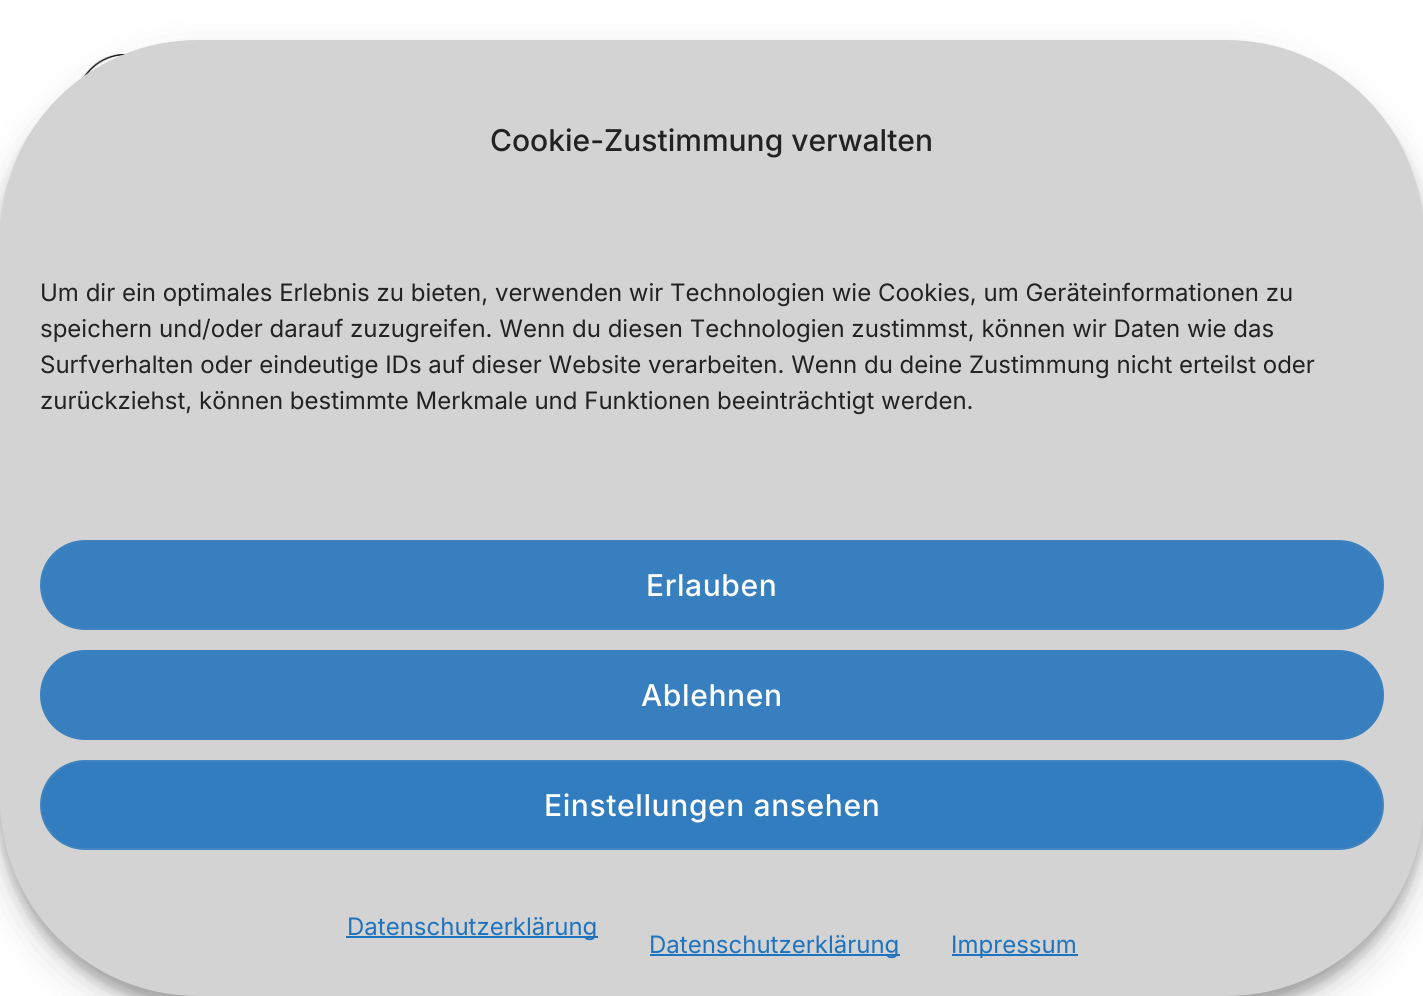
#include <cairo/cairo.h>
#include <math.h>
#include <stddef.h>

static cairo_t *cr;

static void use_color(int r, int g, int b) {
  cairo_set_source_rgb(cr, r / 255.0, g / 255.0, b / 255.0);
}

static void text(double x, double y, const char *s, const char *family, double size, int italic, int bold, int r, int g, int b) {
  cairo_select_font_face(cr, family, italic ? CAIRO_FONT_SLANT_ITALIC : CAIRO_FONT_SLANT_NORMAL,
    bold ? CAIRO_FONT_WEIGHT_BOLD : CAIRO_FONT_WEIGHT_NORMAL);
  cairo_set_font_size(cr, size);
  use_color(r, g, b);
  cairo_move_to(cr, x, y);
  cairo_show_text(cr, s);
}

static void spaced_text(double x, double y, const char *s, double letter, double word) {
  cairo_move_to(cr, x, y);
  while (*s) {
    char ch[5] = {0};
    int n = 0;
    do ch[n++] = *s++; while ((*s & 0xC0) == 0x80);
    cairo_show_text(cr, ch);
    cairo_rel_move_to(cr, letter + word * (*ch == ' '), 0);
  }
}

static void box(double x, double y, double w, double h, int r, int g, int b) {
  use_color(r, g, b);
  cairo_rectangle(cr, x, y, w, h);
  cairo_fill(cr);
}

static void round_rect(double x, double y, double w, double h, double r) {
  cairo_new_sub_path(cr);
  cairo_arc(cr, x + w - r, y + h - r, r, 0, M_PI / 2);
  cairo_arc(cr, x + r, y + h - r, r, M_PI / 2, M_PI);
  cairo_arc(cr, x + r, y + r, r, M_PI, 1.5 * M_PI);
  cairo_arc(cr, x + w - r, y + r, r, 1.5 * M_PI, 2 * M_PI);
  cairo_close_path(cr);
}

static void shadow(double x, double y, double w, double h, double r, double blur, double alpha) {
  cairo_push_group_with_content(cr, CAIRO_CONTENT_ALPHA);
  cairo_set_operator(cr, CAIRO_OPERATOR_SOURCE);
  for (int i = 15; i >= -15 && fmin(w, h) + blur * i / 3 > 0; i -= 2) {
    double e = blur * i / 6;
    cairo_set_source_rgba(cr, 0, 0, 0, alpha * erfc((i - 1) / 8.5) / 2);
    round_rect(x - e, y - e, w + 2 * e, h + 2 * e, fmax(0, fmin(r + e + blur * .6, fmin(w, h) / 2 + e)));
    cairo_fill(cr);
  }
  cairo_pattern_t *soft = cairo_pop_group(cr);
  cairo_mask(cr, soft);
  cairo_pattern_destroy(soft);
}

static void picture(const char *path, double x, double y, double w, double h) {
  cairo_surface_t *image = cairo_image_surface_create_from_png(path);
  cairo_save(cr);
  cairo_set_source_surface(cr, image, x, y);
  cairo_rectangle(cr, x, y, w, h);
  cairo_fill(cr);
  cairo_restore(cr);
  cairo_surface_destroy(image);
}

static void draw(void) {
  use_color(255, 255, 255);
  cairo_paint(cr);
  cairo_save(cr);
  cairo_rectangle(cr, 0, 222, 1, 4);
  cairo_clip(cr);
  use_color(0, 0, 0);
  shadow(0, 0, 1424, 222, 0, 15, 0.1);
  cairo_restore(cr);
  picture("img_01.png", 81, 54, 44, 25);
  box(0, 798, 1423, 36, 250, 250, 250);
  use_color(0, 0, 0);
  shadow(0, 52, 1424, 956, 198, 6, 0.23);
  shadow(0, 60, 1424, 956, 198, 20, 0.19);
  use_color(211, 211, 211);
  round_rect(0, 40, 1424, 956, 198);
  cairo_fill(cr);
  use_color(55, 127, 191);
  round_rect(41, 541, 1342, 88, 44);
  cairo_fill_preserve(cr);
  use_color(61, 130, 191);
  cairo_stroke(cr);
  use_color(55, 127, 191);
  round_rect(41, 651, 1342, 88, 44);
  cairo_fill_preserve(cr);
  use_color(57, 128, 191);
  cairo_stroke(cr);
  use_color(49, 125, 191);
  round_rect(41, 761, 1342, 88, 44);
  cairo_fill_preserve(cr);
  use_color(65, 132, 191);
  cairo_stroke(cr);
  box(346, 936, 252, 2, 30, 115, 190);
  box(650, 954, 250, 2, 30, 115, 190);
  box(952, 954, 126, 2, 30, 115, 190);
  text(490, 151, "Cookie-Zustimmung verwalten", "Inter Medium", 30, 0, 0, 34, 34, 34);
  text(40, 301, "Um dir ein optimales Erlebnis zu bieten, verwenden wir Technologien wie Cookies, um Geräteinformationen zu", "Inter", 24, 0, 0, 34, 34, 34);
  text(40, 337, "speichern und/oder darauf zuzugreifen. Wenn du diesen Technologien zustimmst, können wir Daten wie das", "Inter", 24, 0, 0, 34, 34, 34);
  text(40, 373, "Surfverhalten oder eindeutige IDs auf dieser Website verarbeiten. Wenn du deine Zustimmung nicht erteilst oder", "Inter", 24, 0, 0, 34, 34, 34);
  text(40, 409, "zurückziehst, können bestimmte Merkmale und Funktionen beeinträchtigt werden.", "Inter", 24, 0, 0, 34, 34, 34);
  cairo_select_font_face(cr, "Inter Medium", CAIRO_FONT_SLANT_NORMAL, CAIRO_FONT_WEIGHT_NORMAL);
  cairo_set_font_size(cr, 30);
  use_color(255, 255, 255);
  spaced_text(646, 596, "Erlauben", 0.6, 0);
  spaced_text(641, 706, "Ablehnen", 0.6, 0);
  spaced_text(544, 816, "Einstellungen ansehen", 0.6, 0);
  text(347, 935, "Datenschutzerklärung", "Inter", 24, 0, 0, 30, 115, 190);
  text(649, 953, "Datenschutzerklärung", "Inter", 24, 0, 0, 30, 115, 190);
  text(951, 953, "Impressum", "Inter", 24, 0, 0, 30, 115, 190);
}

int main(void) {
  cairo_surface_t *surface = cairo_image_surface_create(CAIRO_FORMAT_RGB24, 1423, 996);
  cr = cairo_create(surface);
  cairo_font_options_t *options = cairo_font_options_create();
  cairo_font_options_set_hint_metrics(options, CAIRO_HINT_METRICS_OFF);
  cairo_font_options_set_hint_style(options, CAIRO_HINT_STYLE_NONE);
  cairo_set_font_options(cr, options);
  cairo_set_miter_limit(cr, 4);
  draw();
  cairo_surface_write_to_png(surface, "out.png");
  cairo_font_options_destroy(options);
  cairo_destroy(cr);
  cairo_surface_destroy(surface);
  return 0;
}
